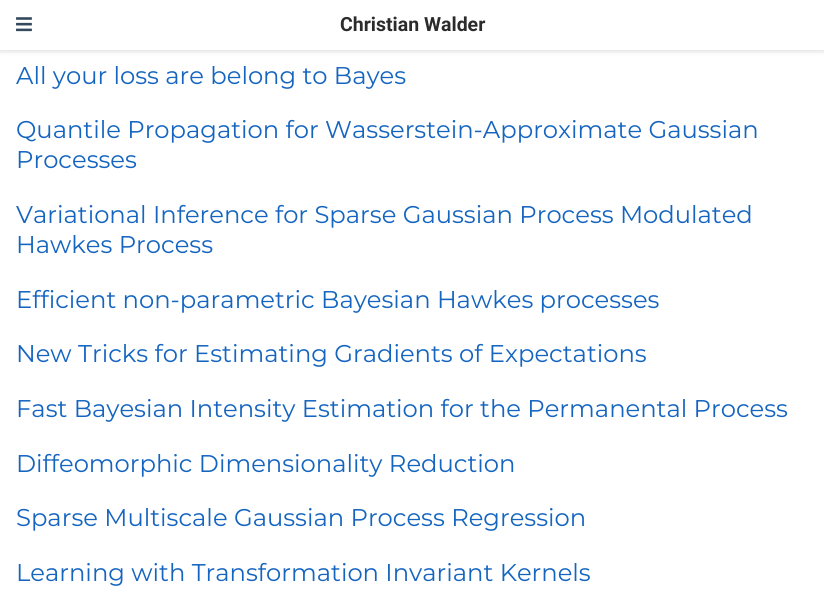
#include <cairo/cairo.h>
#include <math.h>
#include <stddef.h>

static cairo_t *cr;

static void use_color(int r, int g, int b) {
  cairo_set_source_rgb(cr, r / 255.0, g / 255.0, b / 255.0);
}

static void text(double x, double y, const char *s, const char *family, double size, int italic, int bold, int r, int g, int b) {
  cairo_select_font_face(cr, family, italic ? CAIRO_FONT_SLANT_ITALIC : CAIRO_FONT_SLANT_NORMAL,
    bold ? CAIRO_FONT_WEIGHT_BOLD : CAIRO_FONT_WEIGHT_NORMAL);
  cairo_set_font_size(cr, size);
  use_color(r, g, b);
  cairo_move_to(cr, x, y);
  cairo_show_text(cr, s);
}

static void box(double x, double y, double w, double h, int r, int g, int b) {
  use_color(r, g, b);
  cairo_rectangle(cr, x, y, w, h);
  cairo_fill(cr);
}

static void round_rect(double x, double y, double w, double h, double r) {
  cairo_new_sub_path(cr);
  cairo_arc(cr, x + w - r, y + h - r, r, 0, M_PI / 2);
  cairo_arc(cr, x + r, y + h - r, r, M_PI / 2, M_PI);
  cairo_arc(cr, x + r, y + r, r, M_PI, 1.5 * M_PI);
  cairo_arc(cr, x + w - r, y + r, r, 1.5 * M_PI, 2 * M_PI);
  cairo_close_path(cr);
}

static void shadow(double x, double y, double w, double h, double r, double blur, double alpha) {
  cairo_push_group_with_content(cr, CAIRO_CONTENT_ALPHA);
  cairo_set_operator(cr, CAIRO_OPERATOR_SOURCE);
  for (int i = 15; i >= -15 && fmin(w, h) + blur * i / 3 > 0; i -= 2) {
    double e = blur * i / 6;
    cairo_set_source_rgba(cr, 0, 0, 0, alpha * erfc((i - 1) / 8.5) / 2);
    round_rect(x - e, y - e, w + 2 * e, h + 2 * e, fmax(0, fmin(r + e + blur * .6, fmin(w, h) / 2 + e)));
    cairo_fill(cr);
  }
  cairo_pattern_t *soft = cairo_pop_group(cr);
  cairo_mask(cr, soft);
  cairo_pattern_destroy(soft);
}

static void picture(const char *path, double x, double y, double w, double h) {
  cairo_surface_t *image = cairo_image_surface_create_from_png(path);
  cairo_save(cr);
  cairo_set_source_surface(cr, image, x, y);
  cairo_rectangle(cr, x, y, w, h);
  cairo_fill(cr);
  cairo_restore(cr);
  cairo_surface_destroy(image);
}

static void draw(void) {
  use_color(255, 255, 255);
  cairo_paint(cr);
  use_color(0, 0, 0);
  shadow(0, 2, 824, 50, 0, 2, 0.11);
  box(0, 0, 824, 50, 255, 255, 255);
  picture("img_01.png", 16, 17, 16, 15);
  text(340, 31, "Christian Walder", "Roboto", 19.5, 0, 1, 43, 43, 43);
  text(16, 84, "All your loss are belong to Bayes", "Montserrat", 24.25, 0, 0, 21, 101, 192);
  text(16, 138, "Quantile Propagation for Wasserstein-Approximate Gaussian", "Montserrat", 24.25, 0, 0, 21, 101, 192);
  text(16, 168, "Processes", "Montserrat", 24.25, 0, 0, 21, 101, 192);
  text(16, 223, "Variational Inference for Sparse Gaussian Process Modulated", "Montserrat", 24.25, 0, 0, 21, 101, 192);
  text(16, 253, "Hawkes Process", "Montserrat", 24.25, 0, 0, 21, 101, 192);
  text(16, 308, "Efficient non-parametric Bayesian Hawkes processes", "Montserrat", 24.25, 0, 0, 21, 101, 192);
  text(16, 362, "New Tricks for Estimating Gradients of Expectations", "Montserrat", 24.25, 0, 0, 21, 101, 192);
  text(16, 417, "Fast Bayesian Intensity Estimation for the Permanental Process", "Montserrat", 24.25, 0, 0, 21, 101, 192);
  text(16, 472, "Diffeomorphic Dimensionality Reduction", "Montserrat", 24.25, 0, 0, 21, 101, 192);
  text(16, 526, "Sparse Multiscale Gaussian Process Regression", "Montserrat", 24.25, 0, 0, 21, 101, 192);
  text(16, 581, "Learning with Transformation Invariant Kernels", "Montserrat", 24.25, 0, 0, 21, 101, 192);
}

int main(void) {
  cairo_surface_t *surface = cairo_image_surface_create(CAIRO_FORMAT_RGB24, 824, 604);
  cr = cairo_create(surface);
  cairo_font_options_t *options = cairo_font_options_create();
  cairo_font_options_set_hint_metrics(options, CAIRO_HINT_METRICS_OFF);
  cairo_font_options_set_hint_style(options, CAIRO_HINT_STYLE_NONE);
  cairo_set_font_options(cr, options);
  cairo_set_miter_limit(cr, 4);
  draw();
  cairo_surface_write_to_png(surface, "out.png");
  cairo_font_options_destroy(options);
  cairo_destroy(cr);
  cairo_surface_destroy(surface);
  return 0;
}
